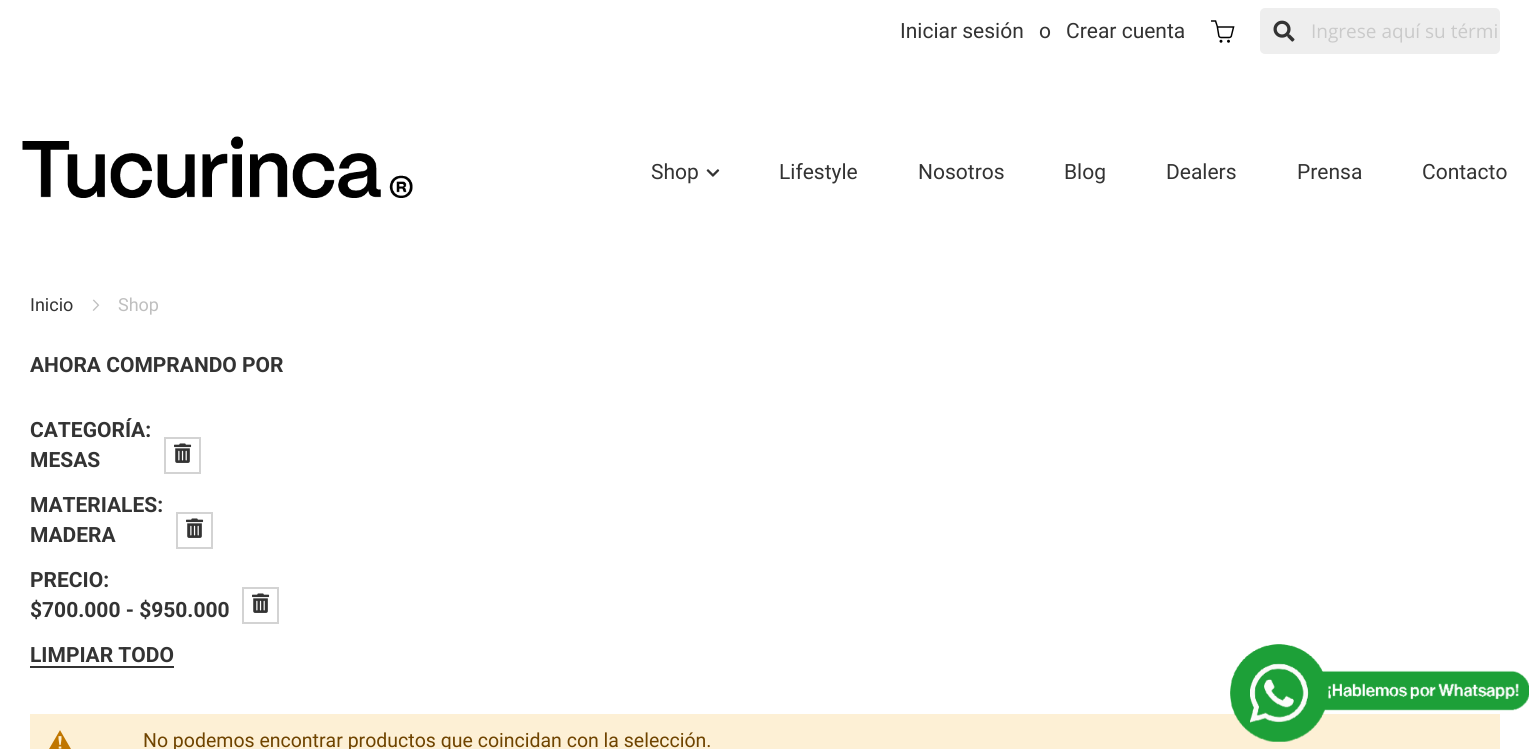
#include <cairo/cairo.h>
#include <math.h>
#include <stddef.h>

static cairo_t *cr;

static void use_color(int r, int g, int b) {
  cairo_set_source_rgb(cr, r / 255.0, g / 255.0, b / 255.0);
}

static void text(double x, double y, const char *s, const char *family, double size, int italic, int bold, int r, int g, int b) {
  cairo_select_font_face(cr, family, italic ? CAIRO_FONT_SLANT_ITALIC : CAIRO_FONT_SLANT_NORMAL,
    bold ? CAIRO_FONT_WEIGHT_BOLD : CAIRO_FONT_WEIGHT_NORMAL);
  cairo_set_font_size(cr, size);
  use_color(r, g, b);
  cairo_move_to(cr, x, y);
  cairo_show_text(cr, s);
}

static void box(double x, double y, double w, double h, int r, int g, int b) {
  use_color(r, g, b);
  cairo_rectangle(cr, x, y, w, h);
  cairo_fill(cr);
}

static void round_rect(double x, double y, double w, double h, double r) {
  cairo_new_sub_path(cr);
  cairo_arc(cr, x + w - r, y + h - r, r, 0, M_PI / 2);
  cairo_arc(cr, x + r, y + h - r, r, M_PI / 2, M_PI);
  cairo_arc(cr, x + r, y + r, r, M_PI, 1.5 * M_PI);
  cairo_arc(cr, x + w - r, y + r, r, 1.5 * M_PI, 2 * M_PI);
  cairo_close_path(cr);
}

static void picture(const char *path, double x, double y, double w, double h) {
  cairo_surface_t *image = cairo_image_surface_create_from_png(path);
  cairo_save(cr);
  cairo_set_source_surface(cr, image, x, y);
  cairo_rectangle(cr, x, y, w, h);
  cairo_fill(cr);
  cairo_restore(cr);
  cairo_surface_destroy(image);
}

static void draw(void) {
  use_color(255, 255, 255);
  cairo_paint(cr);
  picture("img_01.png", 1211, 20, 24, 23);
  use_color(238, 238, 238);
  round_rect(1261, 9, 238, 44, 4);
  cairo_fill_preserve(cr);
  cairo_stroke(cr);
  picture("img_02.png", 1273, 20, 22, 22);
  picture("img_03.png", 22, 136, 391, 62);
  picture("img_04.png", 706, 169, 14, 8);
  picture("img_05.png", 92, 299, 8, 12);
  cairo_rectangle(cr, 165, 438, 35, 35);
  use_color(211, 211, 211);
  cairo_stroke(cr);
  picture("img_06.png", 174, 443, 18, 20);
  cairo_rectangle(cr, 177, 513, 35, 35);
  cairo_stroke(cr);
  picture("img_06.png", 186, 518, 18, 20);
  cairo_rectangle(cr, 243, 588, 35, 35);
  cairo_stroke(cr);
  picture("img_06.png", 252, 593, 18, 20);
  box(30, 666, 144, 2, 51, 51, 51);
  box(30, 714, 1470, 35, 253, 240, 213);
  picture("img_07.png", 49, 730, 22, 19);
  picture("img_08.png", 1230, 644, 299, 98);
  text(900, 38, "Iniciar sesión", "Roboto", 21, 0, 0, 51, 51, 51);
  text(1039, 38, "o", "Roboto", 21, 0, 0, 51, 51, 51);
  text(1066, 38, "Crear cuenta", "Roboto", 21, 0, 0, 51, 51, 51);
  text(1311, 38, "Ingrese aquí su térmi", "Open Sans", 19, 0, 0, 202, 202, 202);
  text(651, 179, "Shop", "Roboto", 21, 0, 0, 51, 51, 51);
  text(779, 179, "Lifestyle", "Roboto", 21, 0, 0, 51, 51, 51);
  text(918, 179, "Nosotros", "Roboto", 21, 0, 0, 51, 51, 51);
  text(1064, 179, "Blog", "Roboto", 21, 0, 0, 51, 51, 51);
  text(1166, 179, "Dealers", "Roboto", 21, 0, 0, 51, 51, 51);
  text(1297, 179, "Prensa", "Roboto", 21, 0, 0, 51, 51, 51);
  text(1422, 179, "Contacto", "Roboto", 21, 0, 0, 51, 51, 51);
  text(30, 311, "Inicio", "Roboto", 18, 0, 0, 51, 51, 51);
  text(118, 311, "Shop", "Roboto", 18, 0, 0, 191, 191, 191);
  text(30, 372, "AHORA COMPRANDO POR", "Roboto", 21, 0, 1, 51, 51, 51);
  text(30, 437, "CATEGORÍA:", "Roboto", 21, 0, 1, 51, 51, 51);
  text(30, 467, "MESAS", "Roboto", 21, 0, 1, 51, 51, 51);
  text(30, 512, "MATERIALES:", "Roboto", 21, 0, 1, 51, 51, 51);
  text(30, 542, "MADERA", "Roboto", 21, 0, 1, 51, 51, 51);
  text(30, 587, "PRECIO:", "Roboto", 21, 0, 1, 51, 51, 51);
  text(30, 617, "$700.000 - $950.000", "Roboto", 21, 0, 1, 51, 51, 51);
  text(30, 662, "LIMPIAR TODO", "Roboto", 21, 0, 1, 51, 51, 51);
  text(143, 747, "No podemos encontrar productos que coincidan con la selección.", "Roboto", 19.5, 0, 0, 111, 68, 0);
}

int main(void) {
  cairo_surface_t *surface = cairo_image_surface_create(CAIRO_FORMAT_RGB24, 1529, 749);
  cr = cairo_create(surface);
  cairo_font_options_t *options = cairo_font_options_create();
  cairo_font_options_set_hint_metrics(options, CAIRO_HINT_METRICS_OFF);
  cairo_font_options_set_hint_style(options, CAIRO_HINT_STYLE_NONE);
  cairo_set_font_options(cr, options);
  cairo_set_miter_limit(cr, 4);
  draw();
  cairo_surface_write_to_png(surface, "out.png");
  cairo_font_options_destroy(options);
  cairo_destroy(cr);
  cairo_surface_destroy(surface);
  return 0;
}
